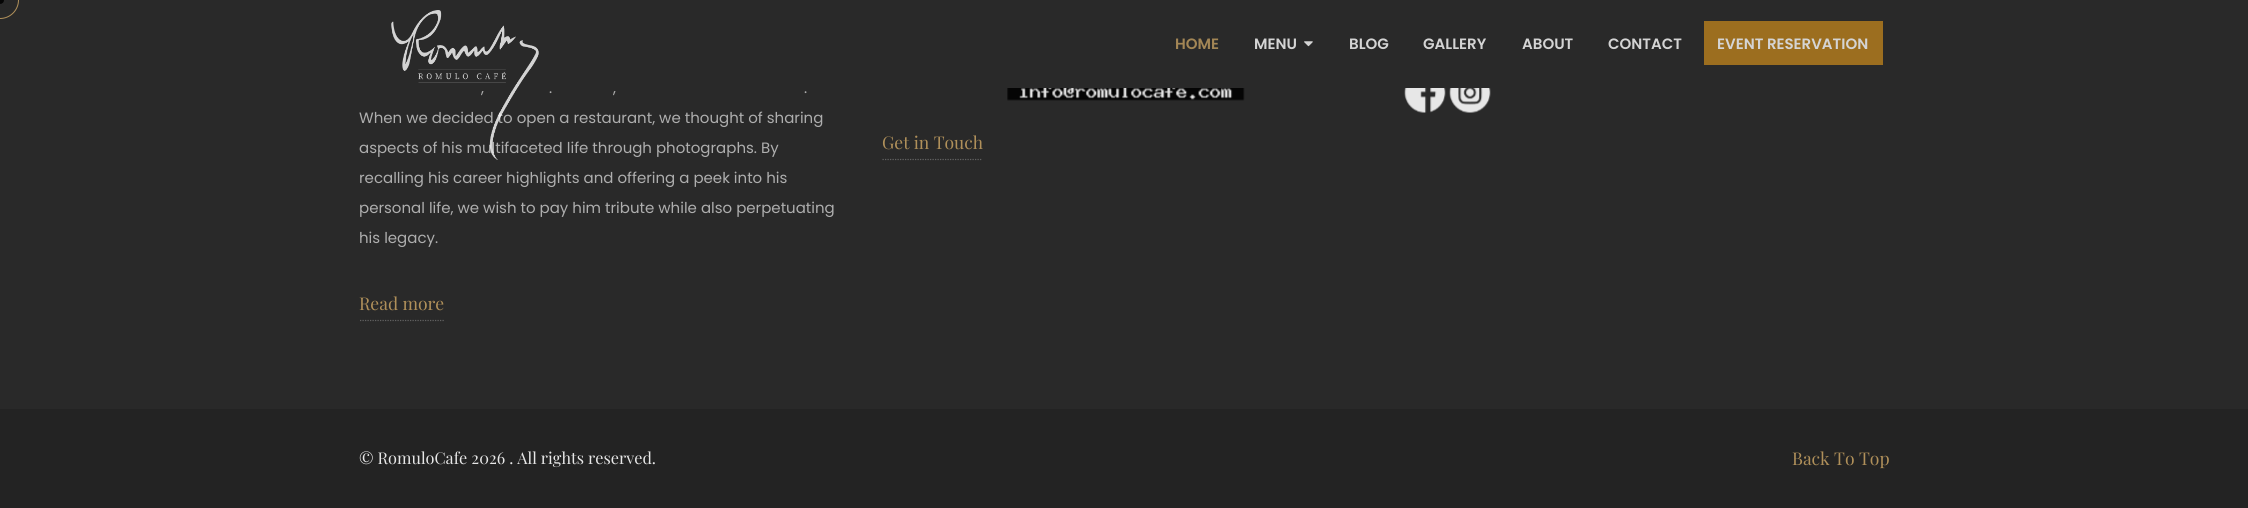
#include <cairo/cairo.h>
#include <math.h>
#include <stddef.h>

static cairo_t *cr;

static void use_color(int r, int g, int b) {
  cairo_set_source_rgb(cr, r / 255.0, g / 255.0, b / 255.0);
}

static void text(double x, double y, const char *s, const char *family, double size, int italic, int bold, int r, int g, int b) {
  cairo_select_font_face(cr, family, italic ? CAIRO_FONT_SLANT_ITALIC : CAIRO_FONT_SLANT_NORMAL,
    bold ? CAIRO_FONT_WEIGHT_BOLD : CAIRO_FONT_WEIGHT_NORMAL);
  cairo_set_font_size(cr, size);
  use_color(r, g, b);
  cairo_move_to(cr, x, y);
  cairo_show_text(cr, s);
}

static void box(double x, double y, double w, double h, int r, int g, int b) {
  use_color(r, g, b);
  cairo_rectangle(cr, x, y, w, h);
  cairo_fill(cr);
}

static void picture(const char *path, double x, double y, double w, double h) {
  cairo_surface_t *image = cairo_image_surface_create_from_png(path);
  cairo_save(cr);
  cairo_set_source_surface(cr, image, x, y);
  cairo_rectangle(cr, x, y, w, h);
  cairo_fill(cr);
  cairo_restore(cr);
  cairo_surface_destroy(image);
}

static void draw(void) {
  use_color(41, 41, 41);
  cairo_paint(cr);
  box(0, 409, 2248, 99, 35, 35, 35);
  cairo_arc(cr, 0, 0, 18.5, 0, 2 * M_PI);
  use_color(176, 144, 90);
  cairo_set_line_width(cr, 1);
  cairo_stroke(cr);
  use_color(5, 5, 5);
  cairo_arc(cr, 0, 0, 4, 0, 2 * M_PI);
  cairo_fill(cr);
  picture("img_02.png", 1304, 41, 9, 6);
  box(1704, 21, 179, 44, 156, 110, 31);
  cairo_new_path(cr);
  cairo_move_to(cr, 360, 320.5);
  cairo_line_to(cr, 445, 320.5);
  use_color(98, 98, 98);
  cairo_set_line_width(cr, 1.2);
  cairo_set_dash(cr, (double[]){1.25, 1.25}, 2, 0);
  cairo_stroke(cr);
  picture("img_03.png", 1007, 88, 238, 13);
  cairo_new_path(cr);
  cairo_move_to(cr, 882.5, 159.5);
  cairo_line_to(cr, 982.5, 159.5);
  cairo_stroke(cr);
  picture("img_04.png", 1404, 88, 42, 25);
  picture("img_05.png", 1449, 88, 42, 25);
  text(1175, 49, "HOME", "Poppins SemiBold", 15, 0, 0, 163, 134, 85);
  text(1254, 49, "MENU", "Poppins SemiBold", 15, 0, 0, 212, 212, 212);
  text(1349, 49, "BLOG", "Poppins SemiBold", 15, 0, 0, 212, 212, 212);
  text(1423, 49, "GALLERY", "Poppins SemiBold", 15, 0, 0, 212, 212, 212);
  text(1522, 49, "ABOUT", "Poppins SemiBold", 15, 0, 0, 212, 212, 212);
  text(1608, 49, "CONTACT", "Poppins SemiBold", 15, 0, 0, 212, 212, 212);
  text(1717, 49, "EVENT RESERVATION", "Poppins SemiBold", 15, 0, 0, 212, 212, 212);
  text(481, 93, ",", "Poppins", 15, 0, 0, 174, 174, 174);
  text(549, 93, ".", "Poppins", 15, 0, 0, 174, 174, 174);
  text(613, 93, ",", "Poppins", 15, 0, 0, 174, 174, 174);
  text(804, 93, ".", "Poppins", 15, 0, 0, 174, 174, 174);
  text(359, 123, "When we decided to open a restaurant, we thought of sharing", "Poppins", 15, 0, 0, 174, 174, 174);
  text(359, 153, "aspects of his multifaceted life through photographs. By", "Poppins", 15, 0, 0, 174, 174, 174);
  picture("img_01.png", 391, 10, 148, 150);
  text(359, 183, "recalling his career highlights and offering a peek into his", "Poppins", 15, 0, 0, 174, 174, 174);
  text(359, 213, "personal life, we wish to pay him tribute while also perpetuating", "Poppins", 15, 0, 0, 174, 174, 174);
  text(359, 243, "his legacy.", "Poppins", 15, 0, 0, 174, 174, 174);
  text(359, 310, "Read more", "Playfair Display", 17.5, 0, 0, 176, 144, 90);
  text(882, 149, "Get in Touch", "Playfair Display", 17.5, 0, 0, 176, 144, 90);
  text(359, 464, "© RomuloCafe 2026 . All rights reserved.", "Playfair Display", 16.25, 0, 0, 231, 231, 231);
  text(1792, 465, "Back To Top", "Playfair Display", 17.5, 0, 0, 176, 144, 90);
}

int main(void) {
  cairo_surface_t *surface = cairo_image_surface_create(CAIRO_FORMAT_RGB24, 2248, 508);
  cr = cairo_create(surface);
  cairo_font_options_t *options = cairo_font_options_create();
  cairo_font_options_set_hint_metrics(options, CAIRO_HINT_METRICS_OFF);
  cairo_font_options_set_hint_style(options, CAIRO_HINT_STYLE_NONE);
  cairo_set_font_options(cr, options);
  cairo_set_miter_limit(cr, 4);
  draw();
  cairo_surface_write_to_png(surface, "out.png");
  cairo_font_options_destroy(options);
  cairo_destroy(cr);
  cairo_surface_destroy(surface);
  return 0;
}
